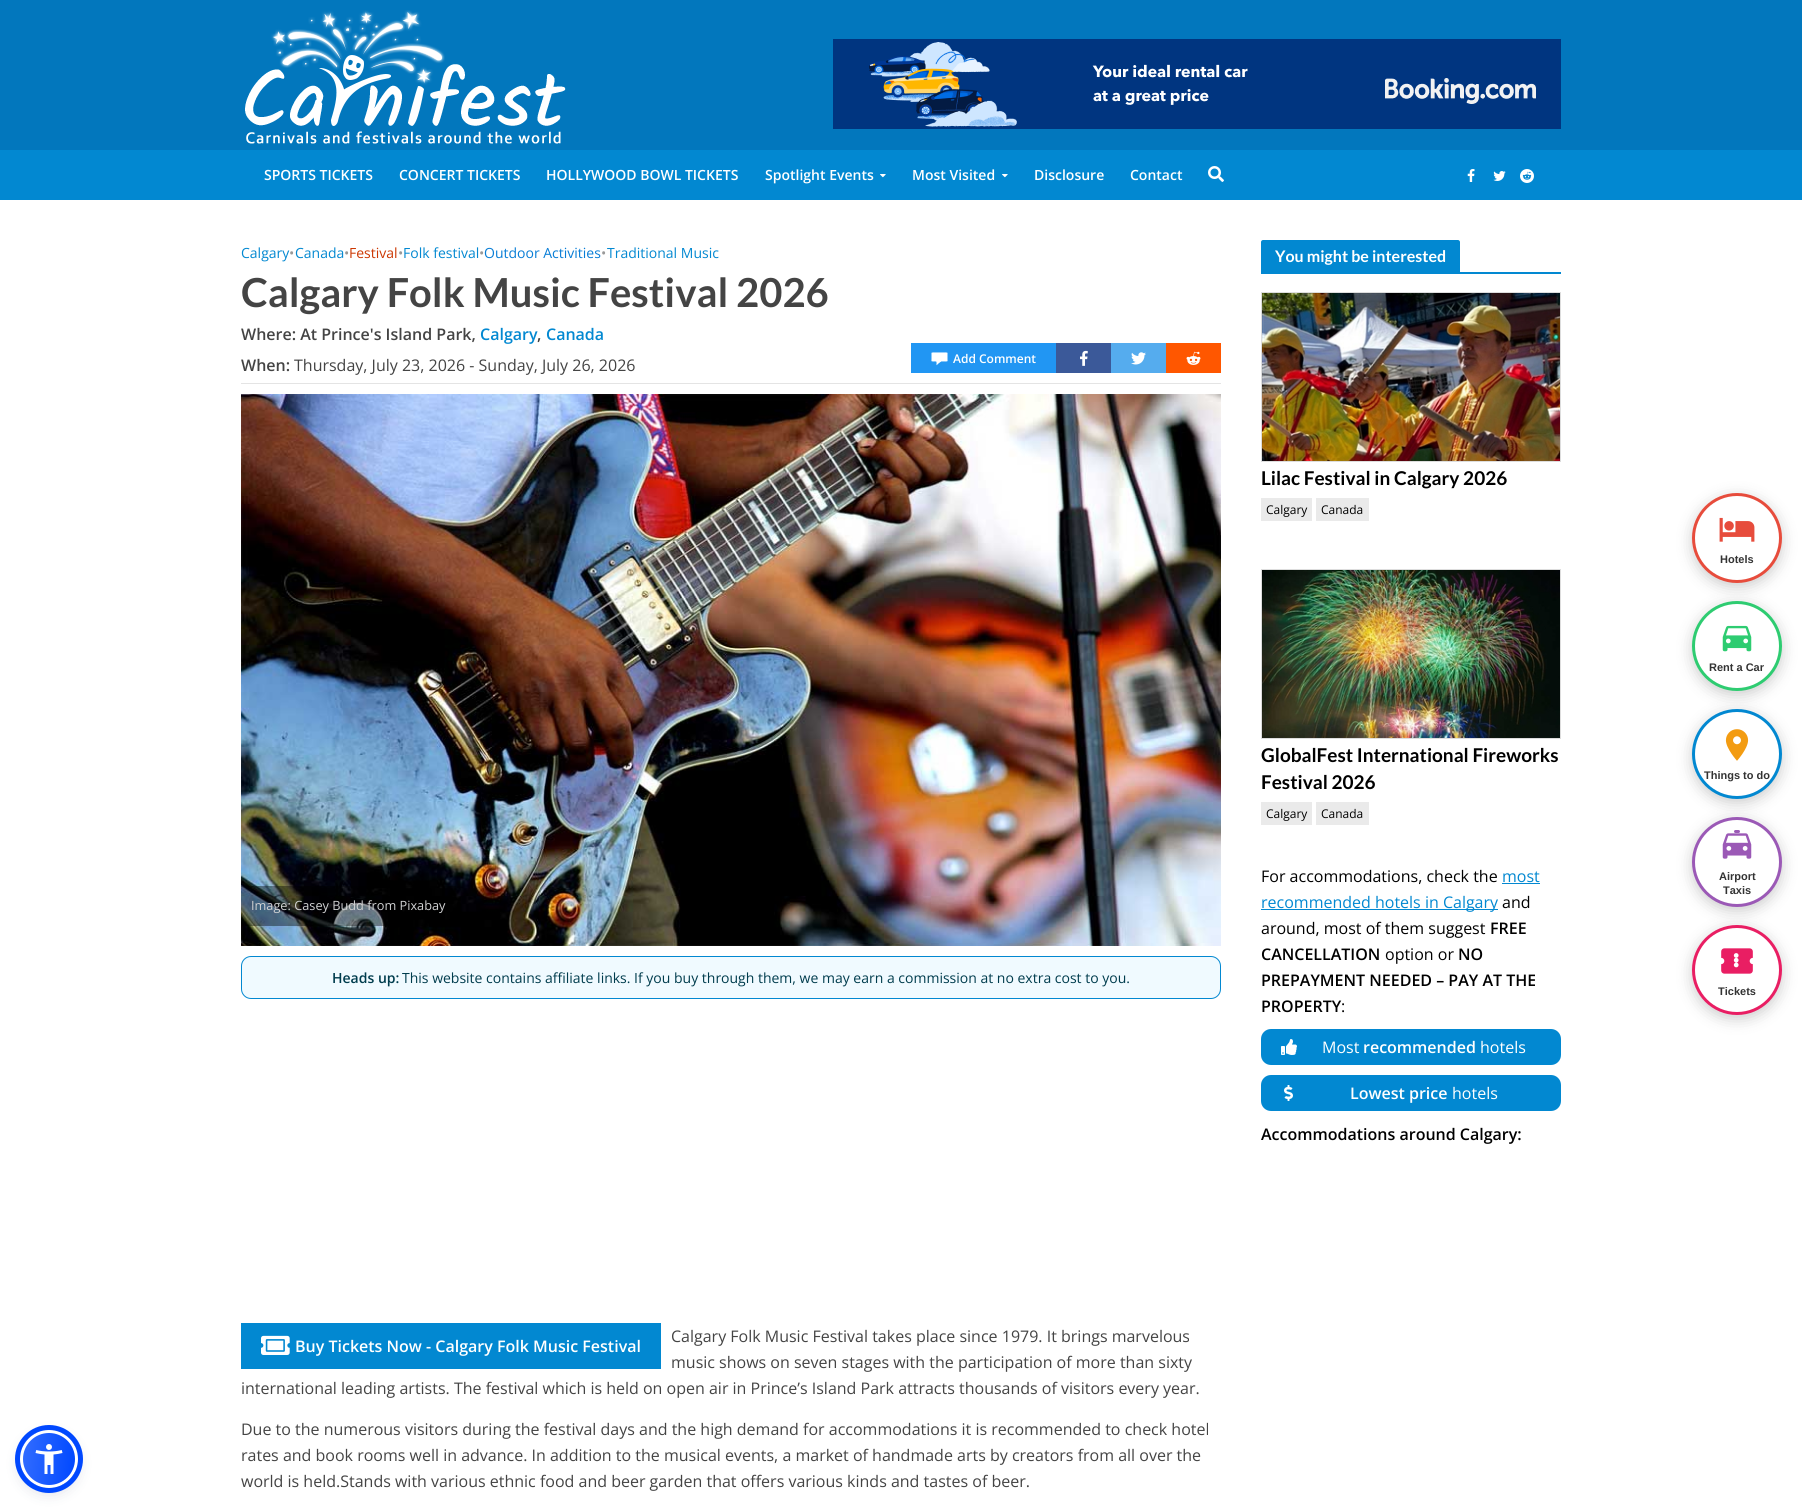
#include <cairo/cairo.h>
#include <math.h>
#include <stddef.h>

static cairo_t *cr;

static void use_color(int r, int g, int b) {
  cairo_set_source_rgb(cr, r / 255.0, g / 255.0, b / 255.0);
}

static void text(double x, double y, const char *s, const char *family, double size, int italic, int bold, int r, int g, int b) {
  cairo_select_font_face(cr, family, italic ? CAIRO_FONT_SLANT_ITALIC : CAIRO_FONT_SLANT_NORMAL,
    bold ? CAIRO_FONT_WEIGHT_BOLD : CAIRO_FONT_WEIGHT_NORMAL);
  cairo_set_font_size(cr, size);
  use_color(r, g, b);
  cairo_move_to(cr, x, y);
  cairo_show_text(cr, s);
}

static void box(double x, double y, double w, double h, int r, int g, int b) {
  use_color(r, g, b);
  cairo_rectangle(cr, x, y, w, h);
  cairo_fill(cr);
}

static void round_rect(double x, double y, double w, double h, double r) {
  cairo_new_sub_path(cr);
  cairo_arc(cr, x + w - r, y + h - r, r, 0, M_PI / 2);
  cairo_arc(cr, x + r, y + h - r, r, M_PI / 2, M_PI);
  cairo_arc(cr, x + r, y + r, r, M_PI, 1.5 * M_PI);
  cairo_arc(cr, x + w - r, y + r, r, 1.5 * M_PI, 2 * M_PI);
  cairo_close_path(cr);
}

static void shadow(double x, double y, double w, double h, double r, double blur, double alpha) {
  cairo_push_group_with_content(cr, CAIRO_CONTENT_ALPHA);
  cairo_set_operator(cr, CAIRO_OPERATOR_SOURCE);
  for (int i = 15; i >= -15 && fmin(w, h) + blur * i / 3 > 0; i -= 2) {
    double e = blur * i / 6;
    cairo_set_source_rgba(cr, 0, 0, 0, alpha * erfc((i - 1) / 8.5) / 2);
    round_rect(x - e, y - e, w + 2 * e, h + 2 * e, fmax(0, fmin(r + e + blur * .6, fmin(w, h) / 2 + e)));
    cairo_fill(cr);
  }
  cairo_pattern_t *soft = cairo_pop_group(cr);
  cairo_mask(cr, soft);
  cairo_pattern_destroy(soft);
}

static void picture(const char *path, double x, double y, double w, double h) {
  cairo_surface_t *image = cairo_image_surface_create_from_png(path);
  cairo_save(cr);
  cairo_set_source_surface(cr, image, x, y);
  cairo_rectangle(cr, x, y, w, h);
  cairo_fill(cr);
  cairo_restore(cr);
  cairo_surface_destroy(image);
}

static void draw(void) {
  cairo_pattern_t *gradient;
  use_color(255, 255, 255);
  cairo_paint(cr);
  box(0, 0, 1802, 150, 2, 119, 189);
  picture("img_01.png", 245, 10, 321, 134);
  picture("img_02.png", 833, 39, 728, 90);
  box(0, 150, 1802, 50, 2, 136, 209);
  picture("img_03.png", 880, 174, 6, 4);
  picture("img_03.png", 1002, 174, 6, 4);
  picture("img_04.png", 1208, 166, 16, 16);
  picture("img_05.png", 1467, 169, 8, 13);
  picture("img_06.png", 1493, 171, 13, 10);
  picture("img_07.png", 1520, 169, 14, 14);
  box(241, 383, 980, 1, 228, 228, 228);
  box(911, 343, 145, 30, 33, 150, 243);
  picture("img_08.png", 931, 352, 17, 14);
  box(1056, 343, 55, 30, 59, 89, 153);
  picture("img_09.png", 1080, 350, 8, 16);
  box(1111, 343, 55, 30, 85, 172, 238);
  picture("img_10.png", 1131, 352, 15, 13);
  box(1166, 343, 55, 30, 255, 87, 0);
  picture("img_11.png", 1186, 351, 15, 14);
  picture("img_12.png", 241, 394, 980, 552);
  cairo_set_source_rgba(cr, 0, 0, 0, 0.4);
  cairo_rectangle(cr, 241, 886, 215, 40);
  cairo_fill(cr);
  use_color(240, 250, 255);
  round_rect(241.5, 956.5, 979, 42, 9.5);
  cairo_fill_preserve(cr);
  use_color(2, 136, 209);
  cairo_set_line_width(cr, 1);
  cairo_stroke(cr);
  box(241, 1323, 420, 46, 2, 136, 209);
  picture("img_13.png", 261, 1335, 29, 20);
  cairo_new_path(cr);
  cairo_move_to(cr, 1263, 240);
  cairo_line_to(cr, 1458, 240);
  cairo_curve_to(cr, 1459, 240, 1460, 241, 1460, 242);
  cairo_line_to(cr, 1460, 272);
  cairo_line_to(cr, 1261, 272);
  cairo_line_to(cr, 1261, 242);
  cairo_curve_to(cr, 1261, 241, 1262, 240, 1263, 240);
  cairo_close_path(cr);
  cairo_fill(cr);
  box(1261, 272, 300, 2, 2, 136, 209);
  cairo_rectangle(cr, 1261.5, 292.5, 299, 169);
  use_color(221, 221, 221);
  cairo_stroke(cr);
  picture("img_14.png", 1262, 293, 298, 168);
  box(1261, 498, 51, 23, 234, 234, 234);
  box(1316, 498, 53, 23, 234, 234, 234);
  cairo_rectangle(cr, 1261.5, 569.5, 299, 169);
  use_color(221, 221, 221);
  cairo_stroke(cr);
  picture("img_15.png", 1262, 570, 298, 168);
  box(1261, 802, 51, 23, 234, 234, 234);
  box(1316, 802, 53, 23, 234, 234, 234);
  box(1502, 883, 38, 1, 2, 136, 209);
  box(1261, 909, 237, 1, 2, 136, 209);
  round_rect(1261, 1029, 300, 36, 10);
  cairo_fill(cr);
  picture("img_16.png", 1281, 1039, 16, 16);
  round_rect(1261, 1075, 300, 36, 10);
  cairo_fill(cr);
  picture("img_17.png", 1284, 1085, 9, 16);
  use_color(0, 0, 0);
  shadow(1692, 497, 90, 90, 45, 7.5, 0.2);
  use_color(255, 255, 255);
  cairo_arc(cr, 1737, 538, 43.5, 0, 2 * M_PI);
  cairo_fill_preserve(cr);
  use_color(231, 76, 60);
  cairo_set_line_width(cr, 3);
  cairo_stroke(cr);
  picture("img_18.png", 1719, 517, 36, 25);
  use_color(0, 0, 0);
  shadow(1692, 605, 90, 90, 45, 7.5, 0.2);
  use_color(255, 255, 255);
  cairo_arc(cr, 1737, 646, 43.5, 0, 2 * M_PI);
  cairo_fill_preserve(cr);
  use_color(46, 204, 113);
  cairo_stroke(cr);
  picture("img_19.png", 1722, 625, 30, 27);
  use_color(0, 0, 0);
  shadow(1692, 713, 90, 90, 45, 7.5, 0.2);
  use_color(255, 255, 255);
  cairo_arc(cr, 1737, 754, 43.5, 0, 2 * M_PI);
  cairo_fill_preserve(cr);
  use_color(2, 136, 209);
  cairo_stroke(cr);
  picture("img_20.png", 1725, 729, 24, 32);
  use_color(0, 0, 0);
  shadow(1692, 821, 90, 90, 45, 7.5, 0.2);
  use_color(255, 255, 255);
  cairo_arc(cr, 1737, 862, 43.5, 0, 2 * M_PI);
  cairo_fill_preserve(cr);
  use_color(155, 89, 182);
  cairo_stroke(cr);
  picture("img_21.png", 1722, 830, 30, 29);
  use_color(0, 0, 0);
  shadow(1692, 929, 90, 90, 45, 7.5, 0.2);
  use_color(255, 255, 255);
  cairo_arc(cr, 1737, 970, 43.5, 0, 2 * M_PI);
  cairo_fill_preserve(cr);
  use_color(233, 30, 99);
  cairo_stroke(cr);
  picture("img_22.png", 1721, 948, 32, 26);
  use_color(93, 100, 148);
  shadow(20, 1432, 58, 58, 29, 2, 0.2);
  use_color(37, 44, 97);
  shadow(20, 1435, 58, 58, 29, 7.5, 0.15);
  cairo_save(cr);
  round_rect(20, 1430, 58, 58, 29);
  cairo_clip(cr);
  gradient = cairo_pattern_create_linear(21, 1456, 77, 1462);
  cairo_pattern_add_color_stop_rgba(gradient, 0, 0.196, 0.424, 1, 1);
  cairo_pattern_add_color_stop_rgba(gradient, 1, 0, 0.282, 1, 1);
  cairo_set_source(cr, gradient);
  cairo_pattern_destroy(gradient);
  cairo_rectangle(cr, 23, 1433, 52, 52);
  cairo_fill(cr);
  cairo_restore(cr);
  cairo_arc(cr, 49, 1459, 27.5, 0, 2 * M_PI);
  use_color(255, 255, 255);
  cairo_stroke(cr);
  cairo_arc(cr, 49, 1459, 31.5, 0, 2 * M_PI);
  use_color(0, 72, 255);
  cairo_set_line_width(cr, 5);
  cairo_stroke(cr);
  picture("img_23.png", 35, 1444, 28, 30);
  text(264, 180, "SPORTS TICKETS", "Open Sans SemiBold", 14, 0, 0, 255, 255, 255);
  text(399, 180, "CONCERT TICKETS", "Open Sans SemiBold", 14, 0, 0, 255, 255, 255);
  text(546, 180, "HOLLYWOOD BOWL TICKETS", "Open Sans SemiBold", 14, 0, 0, 255, 255, 255);
  text(765, 180, "Spotlight Events", "Open Sans SemiBold", 14, 0, 0, 255, 255, 255);
  text(912, 180, "Most Visited", "Open Sans SemiBold", 14, 0, 0, 255, 255, 255);
  text(1034, 180, "Disclosure", "Open Sans SemiBold", 14, 0, 0, 255, 255, 255);
  text(1130, 180, "Contact", "Open Sans SemiBold", 14, 0, 0, 255, 255, 255);
  text(241, 258, "Calgary", "Open Sans", 14, 0, 0, 2, 136, 209);
  text(289, 258, "•", "Open Sans", 14, 0, 0, 153, 153, 153);
  text(295, 258, "Canada", "Open Sans", 14, 0, 0, 2, 136, 209);
  text(344, 258, "•", "Open Sans", 14, 0, 0, 153, 153, 153);
  text(349, 258, "Festival", "Open Sans", 14, 0, 0, 204, 55, 2);
  text(398, 258, "•", "Open Sans", 14, 0, 0, 153, 153, 153);
  text(403, 258, "Folk festival", "Open Sans", 14, 0, 0, 2, 136, 209);
  text(479, 258, "•", "Open Sans", 14, 0, 0, 153, 153, 153);
  text(484, 258, "Outdoor Activities", "Open Sans", 14, 0, 0, 8, 125, 214);
  text(601, 258, "•", "Open Sans", 14, 0, 0, 153, 153, 153);
  text(607, 258, "Traditional Music", "Open Sans", 14, 0, 0, 2, 136, 209);
  text(241, 307, "Calgary Folk Music Festival 2026", "Lato", 40, 0, 1, 68, 68, 68);
  text(241, 340, "Where: At Prince's Island Park,", "Open Sans SemiBold", 16, 0, 0, 68, 68, 68);
  text(480, 340, "Calgary", "Open Sans SemiBold", 16, 0, 0, 2, 136, 209);
  text(537, 340, ",", "Open Sans SemiBold", 16, 0, 0, 68, 68, 68);
  text(546, 340, "Canada", "Open Sans SemiBold", 16, 0, 0, 2, 136, 209);
  text(241, 371, "When:", "Open Sans SemiBold", 16, 0, 0, 68, 68, 68);
  text(294, 371, "Thursday, July 23, 2026 - Sunday, July 26, 2026", "Open Sans", 16, 0, 0, 68, 68, 68);
  text(953, 363, "Add Comment", "Open Sans SemiBold", 12, 0, 0, 255, 255, 255);
  text(251, 910, "Image: Casey Budd from Pixabay", "Open Sans", 12.75, 0, 0, 209, 210, 211);
  text(332, 983, "Heads up:", "Open Sans SemiBold", 14, 0, 0, 0, 60, 77);
  text(402, 983, "This website contains affiliate links. If you buy through them, we may earn a commission at no extra cost to you.", "Open Sans", 14, 0, 0, 0, 60, 77);
  text(295, 1352, "Buy Tickets Now - Calgary Folk Music Festival", "Open Sans SemiBold", 16, 0, 0, 255, 255, 255);
  text(671, 1342, "Calgary Folk Music Festival takes place since 1979. It brings marvelous", "Open Sans", 16, 0, 0, 68, 68, 68);
  text(671, 1368, "music shows on seven stages with the participation of more than sixty", "Open Sans", 16, 0, 0, 68, 68, 68);
  text(241, 1394, "international leading artists. The festival which is held on open air in Prince’s Island Park attracts thousands of visitors every year.", "Open Sans", 16, 0, 0, 68, 68, 68);
  text(241, 1435, "Due to the numerous visitors during the festival days and the high demand for accommodations it is recommended to check hotel", "Open Sans", 16, 0, 0, 68, 68, 68);
  text(241, 1461, "rates and book rooms well in advance. In addition to the musical events, a market of handmade arts by creators from all over the", "Open Sans", 16, 0, 0, 68, 68, 68);
  text(241, 1487, "world is held.Stands with various ethnic food and beer garden that offers various kinds and tastes of beer.", "Open Sans", 16, 0, 0, 68, 68, 68);
  text(1275, 262, "You might be interested", "Lato", 16, 0, 1, 255, 255, 255);
  text(1261, 485, "Lilac Festival in Calgary 2026", "Lato", 19, 0, 1, 0, 0, 0);
  text(1266, 514, "Calgary", "Open Sans", 12, 0, 0, 0, 0, 0);
  text(1321, 514, "Canada", "Open Sans", 12, 0, 0, 0, 0, 0);
  text(1261, 762, "GlobalFest International Fireworks", "Lato", 19, 0, 1, 0, 0, 0);
  text(1261, 789, "Festival 2026", "Lato", 19, 0, 1, 0, 0, 0);
  text(1266, 818, "Calgary", "Open Sans", 12, 0, 0, 0, 0, 0);
  text(1321, 818, "Canada", "Open Sans", 12, 0, 0, 0, 0, 0);
  text(1261, 882, "For accommodations, check the", "Open Sans", 16, 0, 0, 0, 0, 0);
  text(1502, 882, "most", "Open Sans", 16, 0, 0, 2, 136, 209);
  text(1261, 908, "recommended hotels in Calgary", "Open Sans", 16, 0, 0, 2, 136, 209);
  text(1502, 908, "and", "Open Sans", 16, 0, 0, 0, 0, 0);
  text(1261, 934, "around, most of them suggest", "Open Sans", 16, 0, 0, 0, 0, 0);
  text(1490, 934, "FREE", "Open Sans SemiBold", 16, 0, 0, 0, 0, 0);
  text(1261, 960, "CANCELLATION", "Open Sans SemiBold", 16, 0, 0, 0, 0, 0);
  text(1385, 960, "option or", "Open Sans", 16, 0, 0, 0, 0, 0);
  text(1458, 960, "NO", "Open Sans SemiBold", 16, 0, 0, 0, 0, 0);
  text(1261, 986, "PREPAYMENT NEEDED – PAY AT THE", "Open Sans SemiBold", 16, 0, 0, 0, 0, 0);
  text(1261, 1012, "PROPERTY", "Open Sans SemiBold", 16, 0, 0, 0, 0, 0);
  text(1341, 1012, ":", "Open Sans", 16, 0, 0, 0, 0, 0);
  text(1322, 1053, "Most", "Open Sans", 16, 0, 0, 255, 255, 255);
  text(1363, 1053, "recommended", "Open Sans SemiBold", 16, 0, 0, 255, 255, 255);
  text(1480, 1053, "hotels", "Open Sans", 16, 0, 0, 255, 255, 255);
  text(1350, 1099, "Lowest price", "Open Sans SemiBold", 16, 0, 0, 255, 255, 255);
  text(1452, 1099, "hotels", "Open Sans", 16, 0, 0, 255, 255, 255);
  text(1261, 1140, "Accommodations around Calgary:", "Open Sans SemiBold", 16, 0, 0, 0, 0, 0);
  text(1720, 563, "Hotels", "Liberation Sans", 11, 0, 1, 51, 51, 51);
  text(1709, 671, "Rent a Car", "Liberation Sans", 11, 0, 1, 51, 51, 51);
  text(1704, 779, "Things to do", "Liberation Sans", 11, 0, 1, 51, 51, 51);
  text(1719, 880, "Airport", "Liberation Sans", 11, 0, 1, 51, 51, 51);
  text(1723, 894, "Taxis", "Liberation Sans", 11, 0, 1, 51, 51, 51);
  text(1718, 995, "Tickets", "Liberation Sans", 11, 0, 1, 51, 51, 51);
}

int main(void) {
  cairo_surface_t *surface = cairo_image_surface_create(CAIRO_FORMAT_RGB24, 1802, 1508);
  cr = cairo_create(surface);
  cairo_font_options_t *options = cairo_font_options_create();
  cairo_font_options_set_hint_metrics(options, CAIRO_HINT_METRICS_OFF);
  cairo_font_options_set_hint_style(options, CAIRO_HINT_STYLE_NONE);
  cairo_set_font_options(cr, options);
  cairo_set_miter_limit(cr, 4);
  draw();
  cairo_surface_write_to_png(surface, "out.png");
  cairo_font_options_destroy(options);
  cairo_destroy(cr);
  cairo_surface_destroy(surface);
  return 0;
}
